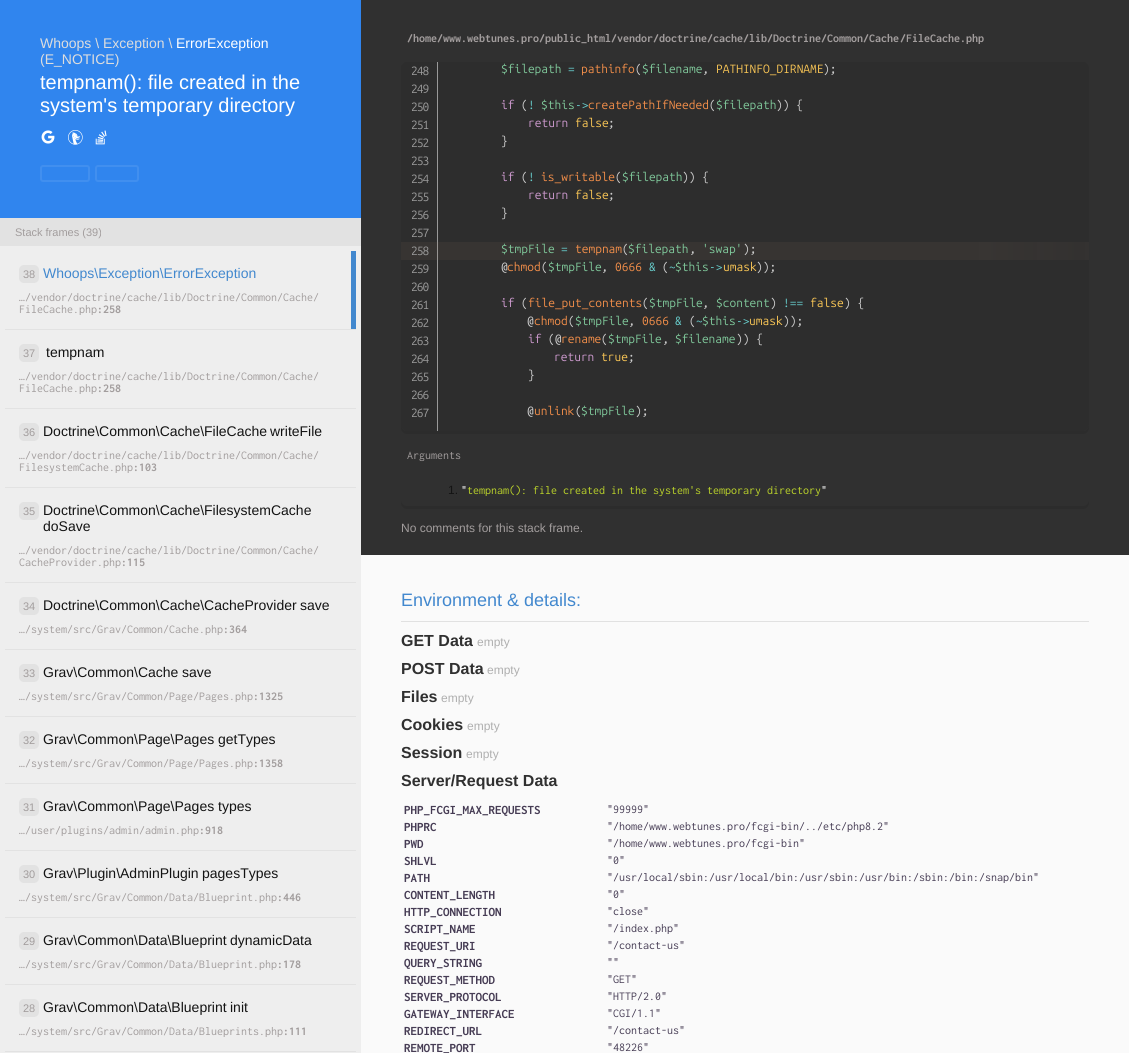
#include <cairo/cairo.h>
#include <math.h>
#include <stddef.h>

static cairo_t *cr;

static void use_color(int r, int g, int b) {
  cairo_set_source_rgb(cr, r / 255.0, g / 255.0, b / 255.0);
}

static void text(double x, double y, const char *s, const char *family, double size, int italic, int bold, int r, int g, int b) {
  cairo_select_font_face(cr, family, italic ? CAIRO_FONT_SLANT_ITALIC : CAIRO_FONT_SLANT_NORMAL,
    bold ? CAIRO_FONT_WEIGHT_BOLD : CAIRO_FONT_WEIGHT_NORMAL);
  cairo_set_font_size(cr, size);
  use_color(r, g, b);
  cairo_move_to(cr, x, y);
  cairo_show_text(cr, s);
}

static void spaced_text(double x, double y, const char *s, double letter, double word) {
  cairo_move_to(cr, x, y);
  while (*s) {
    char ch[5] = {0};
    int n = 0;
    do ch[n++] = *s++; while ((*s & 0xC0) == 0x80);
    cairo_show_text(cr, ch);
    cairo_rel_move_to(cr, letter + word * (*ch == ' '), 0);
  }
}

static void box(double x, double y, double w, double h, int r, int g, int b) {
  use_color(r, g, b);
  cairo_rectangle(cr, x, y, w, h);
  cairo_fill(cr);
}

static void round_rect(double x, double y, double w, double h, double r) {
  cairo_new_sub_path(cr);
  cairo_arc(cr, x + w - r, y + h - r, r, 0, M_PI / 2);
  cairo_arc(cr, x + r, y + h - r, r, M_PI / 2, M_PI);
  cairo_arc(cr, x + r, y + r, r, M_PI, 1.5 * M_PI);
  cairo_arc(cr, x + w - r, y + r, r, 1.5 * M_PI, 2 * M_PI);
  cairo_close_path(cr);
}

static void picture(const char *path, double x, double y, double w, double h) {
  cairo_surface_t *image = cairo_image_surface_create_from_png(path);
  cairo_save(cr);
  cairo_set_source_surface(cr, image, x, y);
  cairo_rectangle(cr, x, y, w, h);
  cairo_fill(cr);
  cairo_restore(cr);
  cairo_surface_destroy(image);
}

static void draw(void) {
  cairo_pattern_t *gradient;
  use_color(238, 238, 238);
  cairo_paint(cr);
  box(0, 0, 361, 218, 48, 133, 238);
  picture("img_01.png", 41, 130, 14, 14);
  picture("img_02.png", 68, 130, 15, 15);
  picture("img_03.png", 95, 130, 12, 15);
  round_rect(41, 166, 48, 15, 2);
  use_color(65, 143, 239);
  cairo_stroke(cr);
  round_rect(96, 166, 42, 15, 2);
  cairo_stroke(cr);
  box(0, 218, 361, 28, 226, 226, 226);
  box(351, 251, 5, 78, 66, 136, 206);
  box(5, 329, 351, 1, 226, 226, 226);
  round_rect(19, 265, 20, 18, 5);
  cairo_fill(cr);
  box(5, 408, 351, 1, 226, 226, 226);
  round_rect(19, 344, 20, 18, 5);
  cairo_fill(cr);
  box(5, 487, 351, 1, 226, 226, 226);
  round_rect(19, 423, 20, 18, 5);
  cairo_fill(cr);
  box(5, 582, 351, 1, 226, 226, 226);
  round_rect(19, 502, 20, 18, 5);
  cairo_fill(cr);
  box(5, 649, 351, 1, 226, 226, 226);
  round_rect(19, 597, 20, 18, 5);
  cairo_fill(cr);
  box(5, 716, 351, 1, 226, 226, 226);
  round_rect(19, 664, 20, 18, 5);
  cairo_fill(cr);
  box(5, 783, 351, 1, 226, 226, 226);
  round_rect(19, 731, 20, 18, 5);
  cairo_fill(cr);
  box(5, 850, 351, 1, 226, 226, 226);
  round_rect(19, 798, 20, 18, 5);
  cairo_fill(cr);
  box(5, 917, 351, 1, 226, 226, 226);
  round_rect(19, 865, 20, 18, 5);
  cairo_fill(cr);
  box(5, 984, 351, 1, 226, 226, 226);
  round_rect(19, 932, 20, 18, 5);
  cairo_fill(cr);
  box(5, 1051, 351, 1, 226, 226, 226);
  round_rect(19, 999, 20, 18, 5);
  cairo_fill(cr);
  box(361, 555, 768, 498, 250, 250, 250);
  box(361, 0, 768, 555, 48, 48, 48);
  use_color(44, 44, 44);
  cairo_new_path(cr);
  cairo_move_to(cr, 401, 425);
  cairo_line_to(cr, 401, 428);
  cairo_curve_to(cr, 401, 431, 404, 434, 407, 434);
  cairo_line_to(cr, 1083, 434);
  cairo_curve_to(cr, 1086, 434, 1089, 431, 1089, 428);
  cairo_line_to(cr, 1089, 425);
  cairo_curve_to(cr, 1089, 428, 1086, 431, 1083, 431);
  cairo_line_to(cr, 407, 431);
  cairo_curve_to(cr, 404, 431, 401, 428, 401, 425);
  cairo_close_path(cr);
  cairo_fill(cr);
  use_color(45, 45, 45);
  round_rect(401, 62, 688, 369, 6);
  cairo_fill(cr);
  box(437, 62, 1, 369, 153, 153, 153);
  gradient = cairo_pattern_create_linear(401, 251, 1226, 251);
  cairo_pattern_add_color_stop_rgba(gradient, 0.7, 0.6, 0.478, 0.4, 0.1);
  cairo_pattern_add_color_stop_rgba(gradient, 1, 0.6, 0.478, 0.4, 0);
  cairo_set_source(cr, gradient);
  cairo_pattern_destroy(gradient);
  cairo_rectangle(cr, 401, 242, 688, 18);
  cairo_fill(cr);
  use_color(44, 44, 44);
  cairo_new_path(cr);
  cairo_move_to(cr, 401, 500);
  cairo_line_to(cr, 401, 503);
  cairo_curve_to(cr, 401, 506, 404, 509, 407, 509);
  cairo_line_to(cr, 1083, 509);
  cairo_curve_to(cr, 1086, 509, 1089, 506, 1089, 503);
  cairo_line_to(cr, 1089, 500);
  cairo_curve_to(cr, 1089, 503, 1086, 506, 1083, 506);
  cairo_line_to(cr, 407, 506);
  cairo_curve_to(cr, 404, 506, 401, 503, 401, 500);
  cairo_close_path(cr);
  cairo_fill(cr);
  box(401, 621, 688, 1, 225, 225, 225);
  text(40, 48, "Whoops \\ Exception \\", "Liberation Sans", 14, 0, 0, 221, 221, 221);
  text(176, 48, "ErrorException", "Liberation Sans", 14, 0, 0, 255, 255, 255);
  text(40, 64, "(E_NOTICE)", "Liberation Sans", 14, 0, 0, 221, 221, 221);
  text(40, 89, "tempnam(): file created in the", "Liberation Sans", 20, 0, 0, 255, 255, 255);
  text(40, 112, "system's temporary directory", "Liberation Sans", 20, 0, 0, 255, 255, 255);
  text(15, 236, "Stack frames (39)", "Liberation Sans", 11, 0, 0, 162, 157, 157);
  text(23, 278, "38", "Liberation Sans", 11, 0, 0, 162, 157, 157);
  text(43, 278, "Whoops\\Exception\\ErrorException", "Liberation Sans", 14, 0, 0, 66, 136, 206);
  text(19, 301, "…/vendor/doctrine/cache/lib/Doctrine/Common/Cache/", "Inconsolata", 12, 0, 0, 162, 157, 157);
  text(19, 313, "FileCache.php", "Inconsolata", 12, 0, 0, 162, 157, 157);
  text(97, 313, ":258", "Inconsolata", 12, 0, 1, 162, 157, 157);
  text(23, 357, "37", "Liberation Sans", 11, 0, 0, 162, 157, 157);
  text(46, 357, "tempnam", "Liberation Sans", 14, 0, 0, 19, 19, 19);
  text(19, 380, "…/vendor/doctrine/cache/lib/Doctrine/Common/Cache/", "Inconsolata", 12, 0, 0, 162, 157, 157);
  text(19, 392, "FileCache.php", "Inconsolata", 12, 0, 0, 162, 157, 157);
  text(97, 392, ":258", "Inconsolata", 12, 0, 1, 162, 157, 157);
  text(23, 436, "36", "Liberation Sans", 11, 0, 0, 162, 157, 157);
  text(43, 436, "Doctrine\\Common\\Cache\\FileCache", "Liberation Sans", 14, 0, 0, 19, 19, 19);
  text(270, 436, "writeFile", "Liberation Sans", 14, 0, 0, 19, 19, 19);
  text(19, 459, "…/vendor/doctrine/cache/lib/Doctrine/Common/Cache/", "Inconsolata", 12, 0, 0, 162, 157, 157);
  text(19, 471, "FilesystemCache.php", "Inconsolata", 12, 0, 0, 162, 157, 157);
  text(133, 471, ":103", "Inconsolata", 12, 0, 1, 162, 157, 157);
  text(23, 515, "35", "Liberation Sans", 11, 0, 0, 162, 157, 157);
  text(43, 515, "Doctrine\\Common\\Cache\\FilesystemCache", "Liberation Sans", 14, 0, 0, 19, 19, 19);
  text(43, 531, "doSave", "Liberation Sans", 14, 0, 0, 19, 19, 19);
  text(19, 554, "…/vendor/doctrine/cache/lib/Doctrine/Common/Cache/", "Inconsolata", 12, 0, 0, 162, 157, 157);
  text(19, 566, "CacheProvider.php", "Inconsolata", 12, 0, 0, 162, 157, 157);
  text(121, 566, ":115", "Inconsolata", 12, 0, 1, 162, 157, 157);
  text(23, 610, "34", "Liberation Sans", 11, 0, 0, 162, 157, 157);
  text(43, 610, "Doctrine\\Common\\Cache\\CacheProvider", "Liberation Sans", 14, 0, 0, 19, 19, 19);
  text(300, 610, "save", "Liberation Sans", 14, 0, 0, 19, 19, 19);
  text(19, 633, "…/system/src/Grav/Common/Cache.php", "Inconsolata", 12, 0, 0, 162, 157, 157);
  text(223, 633, ":364", "Inconsolata", 12, 0, 1, 162, 157, 157);
  text(23, 677, "33", "Liberation Sans", 11, 0, 0, 162, 157, 157);
  text(43, 677, "Grav\\Common\\Cache", "Liberation Sans", 14, 0, 0, 19, 19, 19);
  text(182, 677, "save", "Liberation Sans", 14, 0, 0, 19, 19, 19);
  text(19, 700, "…/system/src/Grav/Common/Page/Pages.php", "Inconsolata", 12, 0, 0, 162, 157, 157);
  text(253, 700, ":1325", "Inconsolata", 12, 0, 1, 162, 157, 157);
  text(23, 744, "32", "Liberation Sans", 11, 0, 0, 162, 157, 157);
  text(43, 744, "Grav\\Common\\Page\\Pages", "Liberation Sans", 14, 0, 0, 19, 19, 19);
  text(218, 744, "getTypes", "Liberation Sans", 14, 0, 0, 19, 19, 19);
  text(19, 767, "…/system/src/Grav/Common/Page/Pages.php", "Inconsolata", 12, 0, 0, 162, 157, 157);
  text(253, 767, ":1358", "Inconsolata", 12, 0, 1, 162, 157, 157);
  text(23, 811, "31", "Liberation Sans", 11, 0, 0, 162, 157, 157);
  text(43, 811, "Grav\\Common\\Page\\Pages", "Liberation Sans", 14, 0, 0, 19, 19, 19);
  text(218, 811, "types", "Liberation Sans", 14, 0, 0, 19, 19, 19);
  text(19, 834, "…/user/plugins/admin/admin.php", "Inconsolata", 12, 0, 0, 162, 157, 157);
  text(199, 834, ":918", "Inconsolata", 12, 0, 1, 162, 157, 157);
  text(23, 878, "30", "Liberation Sans", 11, 0, 0, 162, 157, 157);
  text(43, 878, "Grav\\Plugin\\AdminPlugin", "Liberation Sans", 14, 0, 0, 19, 19, 19);
  text(202, 878, "pagesTypes", "Liberation Sans", 14, 0, 0, 19, 19, 19);
  text(19, 901, "…/system/src/Grav/Common/Data/Blueprint.php", "Inconsolata", 12, 0, 0, 162, 157, 157);
  text(277, 901, ":446", "Inconsolata", 12, 0, 1, 162, 157, 157);
  text(23, 945, "29", "Liberation Sans", 11, 0, 0, 162, 157, 157);
  text(43, 945, "Grav\\Common\\Data\\Blueprint", "Liberation Sans", 14, 0, 0, 19, 19, 19);
  text(230, 945, "dynamicData", "Liberation Sans", 14, 0, 0, 19, 19, 19);
  text(19, 968, "…/system/src/Grav/Common/Data/Blueprint.php", "Inconsolata", 12, 0, 0, 162, 157, 157);
  text(277, 968, ":178", "Inconsolata", 12, 0, 1, 162, 157, 157);
  text(23, 1012, "28", "Liberation Sans", 11, 0, 0, 162, 157, 157);
  text(43, 1012, "Grav\\Common\\Data\\Blueprint", "Liberation Sans", 14, 0, 0, 19, 19, 19);
  text(230, 1012, "init", "Liberation Sans", 14, 0, 0, 19, 19, 19);
  text(19, 1035, "…/system/src/Grav/Common/Data/Blueprints.php", "Inconsolata", 12, 0, 0, 162, 157, 157);
  text(283, 1035, ":111", "Inconsolata", 12, 0, 1, 162, 157, 157);
  text(407, 42, "/home/www.webtunes.pro/public_html/vendor/doctrine/cache/lib/Doctrine/Common/Cache", "Inconsolata", 12, 0, 1, 162, 157, 157);
  text(900, 42, "/FileCache.php", "Inconsolata", 12, 0, 1, 162, 157, 157);
  cairo_select_font_face(cr, "Ubuntu Mono", CAIRO_FONT_SLANT_NORMAL, CAIRO_FONT_WEIGHT_NORMAL);
  use_color(153, 153, 153);
  spaced_text(411, 75, "248", -1, 0);
  spaced_text(411, 93, "249", -1, 0);
  spaced_text(411, 111, "250", -1, 0);
  spaced_text(411, 129, "251", -1, 0);
  spaced_text(411, 147, "252", -1, 0);
  spaced_text(411, 165, "253", -1, 0);
  spaced_text(411, 183, "254", -1, 0);
  spaced_text(411, 201, "255", -1, 0);
  spaced_text(411, 219, "256", -1, 0);
  spaced_text(411, 237, "257", -1, 0);
  spaced_text(411, 255, "258", -1, 0);
  spaced_text(411, 273, "259", -1, 0);
  spaced_text(411, 291, "260", -1, 0);
  spaced_text(411, 309, "261", -1, 0);
  spaced_text(411, 327, "262", -1, 0);
  spaced_text(411, 345, "263", -1, 0);
  spaced_text(411, 363, "264", -1, 0);
  spaced_text(411, 381, "265", -1, 0);
  spaced_text(411, 399, "266", -1, 0);
  spaced_text(411, 417, "267", -1, 0);
  text(501, 73, "$filepath", "Ubuntu Mono", 12, 0, 0, 126, 198, 153);
  text(568, 73, "=", "Ubuntu Mono", 12, 0, 0, 103, 205, 204);
  text(581, 73, "pathinfo", "Ubuntu Mono", 12, 0, 0, 240, 141, 73);
  text(635, 73, "(", "Ubuntu Mono", 12, 0, 0, 204, 204, 204);
  text(642, 73, "$filename", "Ubuntu Mono", 12, 0, 0, 126, 198, 153);
  text(716, 73, "PATHINFO_DIRNAME", "Ubuntu Mono", 12, 0, 0, 248, 197, 85);
  text(823, 73, ");", "Ubuntu Mono", 12, 0, 0, 204, 204, 204);
  text(702, 73, ",", "Ubuntu Mono", 12, 0, 0, 204, 204, 204);
  text(501, 109, "if", "Ubuntu Mono", 12, 0, 0, 204, 153, 205);
  text(521, 109, "(", "Ubuntu Mono", 12, 0, 0, 204, 204, 204);
  text(528, 109, "!", "Ubuntu Mono", 12, 0, 0, 103, 205, 204);
  text(541, 109, "$this", "Ubuntu Mono", 12, 0, 0, 126, 198, 153);
  text(575, 109, "->", "Ubuntu Mono", 12, 0, 0, 103, 205, 204);
  text(588, 109, "createPathIfNeeded", "Ubuntu Mono", 12, 0, 0, 240, 141, 73);
  text(709, 109, "(", "Ubuntu Mono", 12, 0, 0, 204, 204, 204);
  text(716, 109, "$filepath", "Ubuntu Mono", 12, 0, 0, 126, 198, 153);
  text(776, 109, ")) {", "Ubuntu Mono", 12, 0, 0, 204, 204, 204);
  text(528, 127, "return", "Ubuntu Mono", 12, 0, 0, 204, 153, 205);
  text(575, 127, "false", "Ubuntu Mono", 12, 0, 0, 248, 197, 85);
  text(608, 127, ";", "Ubuntu Mono", 12, 0, 0, 204, 204, 204);
  text(501, 145, "}", "Ubuntu Mono", 12, 0, 0, 204, 204, 204);
  text(501, 181, "if", "Ubuntu Mono", 12, 0, 0, 204, 153, 205);
  text(521, 181, "(", "Ubuntu Mono", 12, 0, 0, 204, 204, 204);
  text(528, 181, "!", "Ubuntu Mono", 12, 0, 0, 103, 205, 204);
  text(541, 181, "is_writable", "Ubuntu Mono", 12, 0, 0, 240, 141, 73);
  text(615, 181, "(", "Ubuntu Mono", 12, 0, 0, 204, 204, 204);
  text(622, 181, "$filepath", "Ubuntu Mono", 12, 0, 0, 126, 198, 153);
  text(682, 181, ")) {", "Ubuntu Mono", 12, 0, 0, 204, 204, 204);
  text(528, 199, "return", "Ubuntu Mono", 12, 0, 0, 204, 153, 205);
  text(575, 199, "false", "Ubuntu Mono", 12, 0, 0, 248, 197, 85);
  text(608, 199, ";", "Ubuntu Mono", 12, 0, 0, 204, 204, 204);
  text(501, 217, "}", "Ubuntu Mono", 12, 0, 0, 204, 204, 204);
  text(501, 253, "$tmpFile", "Ubuntu Mono", 12, 0, 0, 126, 198, 153);
  text(561, 253, "=", "Ubuntu Mono", 12, 0, 0, 103, 205, 204);
  text(575, 253, "tempnam", "Ubuntu Mono", 12, 0, 0, 240, 141, 73);
  text(622, 253, "(", "Ubuntu Mono", 12, 0, 0, 204, 204, 204);
  text(628, 253, "$filepath", "Ubuntu Mono", 12, 0, 0, 126, 198, 153);
  text(702, 253, "'swap'", "Ubuntu Mono", 12, 0, 0, 126, 198, 153);
  text(743, 253, ");", "Ubuntu Mono", 12, 0, 0, 204, 204, 204);
  text(689, 253, ",", "Ubuntu Mono", 12, 0, 0, 204, 204, 204);
  text(501, 271, "@", "Ubuntu Mono", 12, 0, 0, 204, 204, 204);
  text(507, 271, "chmod", "Ubuntu Mono", 12, 0, 0, 240, 141, 73);
  text(541, 271, "(", "Ubuntu Mono", 12, 0, 0, 204, 204, 204);
  text(548, 271, "$tmpFile", "Ubuntu Mono", 12, 0, 0, 126, 198, 153);
  text(615, 271, "0666", "Ubuntu Mono", 12, 0, 0, 240, 141, 73);
  text(649, 271, "&", "Ubuntu Mono", 12, 0, 0, 103, 205, 204);
  text(662, 271, "(", "Ubuntu Mono", 12, 0, 0, 204, 204, 204);
  text(669, 271, "~", "Ubuntu Mono", 12, 0, 0, 103, 205, 204);
  text(675, 271, "$this", "Ubuntu Mono", 12, 0, 0, 126, 198, 153);
  text(709, 271, "->", "Ubuntu Mono", 12, 0, 0, 103, 205, 204);
  text(723, 271, "umask", "Ubuntu Mono", 12, 0, 0, 248, 197, 85);
  text(756, 271, "));", "Ubuntu Mono", 12, 0, 0, 204, 204, 204);
  text(601, 271, ",", "Ubuntu Mono", 12, 0, 0, 204, 204, 204);
  text(501, 307, "if", "Ubuntu Mono", 12, 0, 0, 204, 153, 205);
  text(521, 307, "(", "Ubuntu Mono", 12, 0, 0, 204, 204, 204);
  text(528, 307, "file_put_contents", "Ubuntu Mono", 12, 0, 0, 240, 141, 73);
  text(642, 307, "(", "Ubuntu Mono", 12, 0, 0, 204, 204, 204);
  text(649, 307, "$tmpFile", "Ubuntu Mono", 12, 0, 0, 126, 198, 153);
  text(702, 307, ",", "Ubuntu Mono", 12, 0, 0, 204, 204, 204);
  text(716, 307, "$content", "Ubuntu Mono", 12, 0, 0, 126, 198, 153);
  text(770, 307, ")", "Ubuntu Mono", 12, 0, 0, 204, 204, 204);
  text(783, 307, "!==", "Ubuntu Mono", 12, 0, 0, 103, 205, 204);
  text(810, 307, "false", "Ubuntu Mono", 12, 0, 0, 248, 197, 85);
  text(844, 307, ") {", "Ubuntu Mono", 12, 0, 0, 204, 204, 204);
  text(527, 325, "@", "Ubuntu Mono", 12, 0, 0, 204, 204, 204);
  text(534, 325, "chmod", "Ubuntu Mono", 12, 0, 0, 240, 141, 73);
  text(568, 325, "(", "Ubuntu Mono", 12, 0, 0, 204, 204, 204);
  text(575, 325, "$tmpFile", "Ubuntu Mono", 12, 0, 0, 126, 198, 153);
  text(642, 325, "0666", "Ubuntu Mono", 12, 0, 0, 240, 141, 73);
  text(675, 325, "&", "Ubuntu Mono", 12, 0, 0, 103, 205, 204);
  text(689, 325, "(", "Ubuntu Mono", 12, 0, 0, 204, 204, 204);
  text(696, 325, "~", "Ubuntu Mono", 12, 0, 0, 103, 205, 204);
  text(702, 325, "$this", "Ubuntu Mono", 12, 0, 0, 126, 198, 153);
  text(736, 325, "->", "Ubuntu Mono", 12, 0, 0, 103, 205, 204);
  text(749, 325, "umask", "Ubuntu Mono", 12, 0, 0, 248, 197, 85);
  text(783, 325, "));", "Ubuntu Mono", 12, 0, 0, 204, 204, 204);
  text(628, 325, ",", "Ubuntu Mono", 12, 0, 0, 204, 204, 204);
  text(528, 343, "if", "Ubuntu Mono", 12, 0, 0, 204, 153, 205);
  text(548, 343, "(@", "Ubuntu Mono", 12, 0, 0, 204, 204, 204);
  text(561, 343, "rename", "Ubuntu Mono", 12, 0, 0, 240, 141, 73);
  text(601, 343, "(", "Ubuntu Mono", 12, 0, 0, 204, 204, 204);
  text(608, 343, "$tmpFile", "Ubuntu Mono", 12, 0, 0, 126, 198, 153);
  text(662, 343, ",", "Ubuntu Mono", 12, 0, 0, 204, 204, 204);
  text(675, 343, "$filename", "Ubuntu Mono", 12, 0, 0, 126, 198, 153);
  text(736, 343, ")) {", "Ubuntu Mono", 12, 0, 0, 204, 204, 204);
  text(554, 361, "return", "Ubuntu Mono", 12, 0, 0, 204, 153, 205);
  text(601, 361, "true", "Ubuntu Mono", 12, 0, 0, 248, 197, 85);
  text(628, 361, ";", "Ubuntu Mono", 12, 0, 0, 204, 204, 204);
  text(528, 379, "}", "Ubuntu Mono", 12, 0, 0, 204, 204, 204);
  text(527, 415, "@", "Ubuntu Mono", 12, 0, 0, 204, 204, 204);
  text(534, 415, "unlink", "Ubuntu Mono", 12, 0, 0, 240, 141, 73);
  text(575, 415, "(", "Ubuntu Mono", 12, 0, 0, 204, 204, 204);
  text(581, 415, "$tmpFile", "Ubuntu Mono", 12, 0, 0, 126, 198, 153);
  text(635, 415, ");", "Ubuntu Mono", 12, 0, 0, 204, 204, 204);
  text(407, 459, "Arguments", "Inconsolata", 12, 0, 0, 162, 157, 157);
  text(448, 494, "1.", "Liberation Sans", 12, 0, 0, 19, 19, 19);
  text(461, 494, "\"", "Inconsolata", 12, 0, 0, 255, 255, 255);
  text(467, 494, "tempnam(): file created in the system's temporary directory", "Inconsolata", 12, 0, 0, 188, 212, 42);
  text(821, 494, "\"", "Inconsolata", 12, 0, 0, 255, 255, 255);
  text(401, 532, "No comments for this stack frame.", "Liberation Sans", 12, 0, 0, 162, 157, 157);
  text(401, 606, "Environment & details:", "Liberation Sans", 18, 0, 0, 66, 136, 206);
  text(401, 646, "GET Data", "Liberation Sans", 16, 0, 1, 48, 48, 48);
  text(477, 646, "empty", "Liberation Sans", 12, 0, 0, 175, 175, 175);
  text(401, 674, "POST Data", "Liberation Sans", 16, 0, 1, 48, 48, 48);
  text(487, 674, "empty", "Liberation Sans", 12, 0, 0, 175, 175, 175);
  text(401, 702, "Files", "Liberation Sans", 16, 0, 1, 48, 48, 48);
  text(441, 702, "empty", "Liberation Sans", 12, 0, 0, 175, 175, 175);
  text(401, 730, "Cookies", "Liberation Sans", 16, 0, 1, 48, 48, 48);
  text(467, 730, "empty", "Liberation Sans", 12, 0, 0, 175, 175, 175);
  text(401, 758, "Session", "Liberation Sans", 16, 0, 1, 48, 48, 48);
  text(466, 758, "empty", "Liberation Sans", 12, 0, 0, 175, 175, 175);
  text(401, 786, "Server/Request Data", "Liberation Sans", 16, 0, 1, 48, 48, 48);
  text(404, 814, "PHP_FCGI_MAX_REQUESTS", "Inconsolata", 13, 0, 1, 70, 60, 84);
  text(607, 813, "\"99999\"", "Inconsolata", 12, 0, 0, 70, 60, 84);
  text(404, 831, "PHPRC", "Inconsolata", 13, 0, 1, 70, 60, 84);
  text(607, 830, "\"/home/www.webtunes.pro/fcgi-bin/../etc/php8.2\"", "Inconsolata", 12, 0, 0, 70, 60, 84);
  text(404, 848, "PWD", "Inconsolata", 13, 0, 1, 70, 60, 84);
  text(607, 847, "\"/home/www.webtunes.pro/fcgi-bin\"", "Inconsolata", 12, 0, 0, 70, 60, 84);
  text(404, 865, "SHLVL", "Inconsolata", 13, 0, 1, 70, 60, 84);
  text(607, 864, "\"0\"", "Inconsolata", 12, 0, 0, 70, 60, 84);
  text(404, 882, "PATH", "Inconsolata", 13, 0, 1, 70, 60, 84);
  text(607, 881, "\"/usr/local/sbin:/usr/local/bin:/usr/sbin:/usr/bin:/sbin:/bin:/snap/bin\"", "Inconsolata", 12, 0, 0, 70, 60, 84);
  text(404, 899, "CONTENT_LENGTH", "Inconsolata", 13, 0, 1, 70, 60, 84);
  text(607, 898, "\"0\"", "Inconsolata", 12, 0, 0, 70, 60, 84);
  text(404, 916, "HTTP_CONNECTION", "Inconsolata", 13, 0, 1, 70, 60, 84);
  text(607, 915, "\"close\"", "Inconsolata", 12, 0, 0, 70, 60, 84);
  text(404, 933, "SCRIPT_NAME", "Inconsolata", 13, 0, 1, 70, 60, 84);
  text(607, 932, "\"/index.php\"", "Inconsolata", 12, 0, 0, 70, 60, 84);
  text(404, 950, "REQUEST_URI", "Inconsolata", 13, 0, 1, 70, 60, 84);
  text(607, 949, "\"/contact-us\"", "Inconsolata", 12, 0, 0, 70, 60, 84);
  text(404, 967, "QUERY_STRING", "Inconsolata", 13, 0, 1, 70, 60, 84);
  text(607, 966, "\"\"", "Inconsolata", 12, 0, 0, 70, 60, 84);
  text(404, 984, "REQUEST_METHOD", "Inconsolata", 13, 0, 1, 70, 60, 84);
  text(607, 983, "\"GET\"", "Inconsolata", 12, 0, 0, 70, 60, 84);
  text(404, 1001, "SERVER_PROTOCOL", "Inconsolata", 13, 0, 1, 70, 60, 84);
  text(607, 1000, "\"HTTP/2.0\"", "Inconsolata", 12, 0, 0, 70, 60, 84);
  text(404, 1018, "GATEWAY_INTERFACE", "Inconsolata", 13, 0, 1, 70, 60, 84);
  text(607, 1017, "\"CGI/1.1\"", "Inconsolata", 12, 0, 0, 70, 60, 84);
  text(404, 1035, "REDIRECT_URL", "Inconsolata", 13, 0, 1, 70, 60, 84);
  text(607, 1034, "\"/contact-us\"", "Inconsolata", 12, 0, 0, 70, 60, 84);
  text(404, 1052, "REMOTE_PORT", "Inconsolata", 13, 0, 1, 70, 60, 84);
  text(607, 1051, "\"48226\"", "Inconsolata", 12, 0, 0, 70, 60, 84);
}

int main(void) {
  cairo_surface_t *surface = cairo_image_surface_create(CAIRO_FORMAT_RGB24, 1129, 1053);
  cr = cairo_create(surface);
  cairo_font_options_t *options = cairo_font_options_create();
  cairo_font_options_set_hint_metrics(options, CAIRO_HINT_METRICS_OFF);
  cairo_font_options_set_hint_style(options, CAIRO_HINT_STYLE_NONE);
  cairo_set_font_options(cr, options);
  cairo_set_miter_limit(cr, 4);
  draw();
  cairo_surface_write_to_png(surface, "out.png");
  cairo_font_options_destroy(options);
  cairo_destroy(cr);
  cairo_surface_destroy(surface);
  return 0;
}
